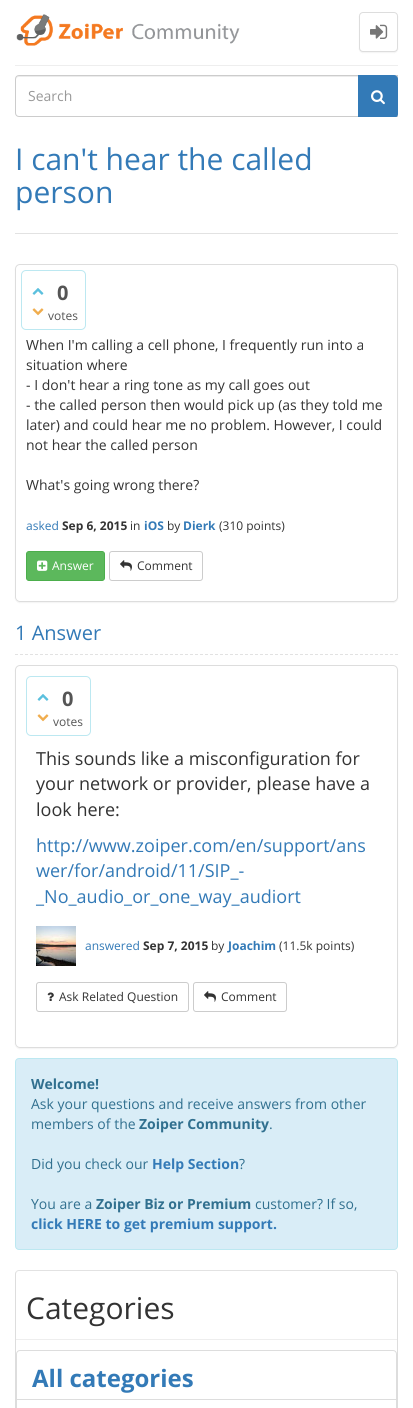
#include <cairo/cairo.h>
#include <math.h>
#include <stddef.h>

static cairo_t *cr;

static void use_color(int r, int g, int b) {
  cairo_set_source_rgb(cr, r / 255.0, g / 255.0, b / 255.0);
}

static void text(double x, double y, const char *s, const char *family, double size, int italic, int bold, int r, int g, int b) {
  cairo_select_font_face(cr, family, italic ? CAIRO_FONT_SLANT_ITALIC : CAIRO_FONT_SLANT_NORMAL,
    bold ? CAIRO_FONT_WEIGHT_BOLD : CAIRO_FONT_WEIGHT_NORMAL);
  cairo_set_font_size(cr, size);
  use_color(r, g, b);
  cairo_move_to(cr, x, y);
  cairo_show_text(cr, s);
}

static void box(double x, double y, double w, double h, int r, int g, int b) {
  use_color(r, g, b);
  cairo_rectangle(cr, x, y, w, h);
  cairo_fill(cr);
}

static void round_rect(double x, double y, double w, double h, double r) {
  cairo_new_sub_path(cr);
  cairo_arc(cr, x + w - r, y + h - r, r, 0, M_PI / 2);
  cairo_arc(cr, x + r, y + h - r, r, M_PI / 2, M_PI);
  cairo_arc(cr, x + r, y + r, r, M_PI, 1.5 * M_PI);
  cairo_arc(cr, x + w - r, y + r, r, 1.5 * M_PI, 2 * M_PI);
  cairo_close_path(cr);
}

static void shadow(double x, double y, double w, double h, double r, double blur, double alpha) {
  cairo_push_group_with_content(cr, CAIRO_CONTENT_ALPHA);
  cairo_set_operator(cr, CAIRO_OPERATOR_SOURCE);
  for (int i = 15; i >= -15 && fmin(w, h) + blur * i / 3 > 0; i -= 2) {
    double e = blur * i / 6;
    cairo_set_source_rgba(cr, 0, 0, 0, alpha * erfc((i - 1) / 8.5) / 2);
    round_rect(x - e, y - e, w + 2 * e, h + 2 * e, fmax(0, fmin(r + e + blur * .6, fmin(w, h) / 2 + e)));
    cairo_fill(cr);
  }
  cairo_pattern_t *soft = cairo_pop_group(cr);
  cairo_mask(cr, soft);
  cairo_pattern_destroy(soft);
}

static void picture(const char *path, double x, double y, double w, double h) {
  cairo_surface_t *image = cairo_image_surface_create_from_png(path);
  cairo_save(cr);
  cairo_set_source_surface(cr, image, x, y);
  cairo_rectangle(cr, x, y, w, h);
  cairo_fill(cr);
  cairo_restore(cr);
  cairo_surface_destroy(image);
}

static void draw(void) {
  use_color(255, 255, 255);
  cairo_paint(cr);
  picture("img_01.png", 16, 14, 224, 32);
  use_color(0, 0, 0);
  shadow(359, 13, 39, 40, 4, 0.5, 0.05);
  use_color(255, 255, 255);
  round_rect(359.5, 12.5, 38, 39, 3.5);
  cairo_fill_preserve(cr);
  use_color(221, 221, 221);
  cairo_set_line_width(cr, 1);
  cairo_stroke(cr);
  picture("img_02.png", 370, 24, 18, 15);
  box(15, 65, 383, 1, 238, 238, 238);
  use_color(236, 236, 236);
  cairo_new_path(cr);
  cairo_move_to(cr, 19, 77);
  cairo_line_to(cr, 397, 77);
  cairo_line_to(cr, 397, 76);
  cairo_line_to(cr, 19, 76);
  cairo_curve_to(cr, 17, 76, 16, 77, 16, 79);
  cairo_line_to(cr, 16, 80);
  cairo_curve_to(cr, 16, 78, 17, 77, 19, 77);
  cairo_close_path(cr);
  cairo_fill(cr);
  cairo_new_path(cr);
  cairo_move_to(cr, 19, 75.5);
  cairo_line_to(cr, 397.5, 75.5);
  cairo_line_to(cr, 397.5, 116.5);
  cairo_line_to(cr, 19, 116.5);
  cairo_curve_to(cr, 17, 116.5, 15.5, 115, 15.5, 113);
  cairo_line_to(cr, 15.5, 79);
  cairo_curve_to(cr, 15.5, 77, 17, 75.5, 19, 75.5);
  cairo_close_path(cr);
  use_color(204, 204, 204);
  cairo_stroke(cr);
  cairo_save(cr);
  cairo_rectangle(cr, 15, 75, 383, 42);
  cairo_clip(cr);
  use_color(51, 122, 183);
  cairo_new_path(cr);
  cairo_move_to(cr, 358, 75);
  cairo_line_to(cr, 394, 75);
  cairo_curve_to(cr, 396, 75, 398, 77, 398, 79);
  cairo_line_to(cr, 398, 114);
  cairo_curve_to(cr, 398, 116, 396, 118, 394, 118);
  cairo_line_to(cr, 358, 118);
  cairo_close_path(cr);
  cairo_fill(cr);
  cairo_restore(cr);
  picture("img_03.png", 371, 90, 14, 15);
  box(15, 233, 383, 1, 226, 226, 226);
  cairo_save(cr);
  cairo_set_fill_rule(cr, CAIRO_FILL_RULE_EVEN_ODD);
  cairo_new_path(cr);
  cairo_move_to(cr, 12, 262);
  cairo_line_to(cr, 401, 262);
  cairo_line_to(cr, 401, 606);
  cairo_line_to(cr, 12, 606);
  cairo_close_path(cr);
  cairo_move_to(cr, 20, 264);
  cairo_line_to(cr, 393, 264);
  cairo_curve_to(cr, 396, 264, 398, 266, 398, 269);
  cairo_line_to(cr, 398, 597);
  cairo_curve_to(cr, 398, 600, 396, 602, 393, 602);
  cairo_line_to(cr, 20, 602);
  cairo_curve_to(cr, 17, 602, 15, 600, 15, 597);
  cairo_line_to(cr, 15, 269);
  cairo_curve_to(cr, 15, 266, 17, 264, 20, 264);
  cairo_close_path(cr);
  cairo_clip(cr);
  use_color(0, 0, 0);
  shadow(15, 265, 383, 338, 5, 0.5, 0.05);
  cairo_restore(cr);
  round_rect(15.5, 264.5, 382, 337, 4.5);
  use_color(221, 221, 221);
  cairo_stroke(cr);
  round_rect(21.5, 270.5, 64, 59, 4.5);
  use_color(188, 232, 241);
  cairo_stroke(cr);
  picture("img_04.png", 32, 288, 12, 7);
  picture("img_05.png", 32, 308, 12, 8);
  use_color(92, 184, 92);
  round_rect(26.5, 551.5, 78, 29, 2.5);
  cairo_fill_preserve(cr);
  use_color(76, 174, 76);
  cairo_stroke(cr);
  picture("img_06.png", 37, 560, 11, 11);
  round_rect(109.5, 551.5, 93, 29, 2.5);
  use_color(204, 204, 204);
  cairo_stroke(cr);
  picture("img_07.png", 120, 560, 12, 11);
  cairo_new_path(cr);
  cairo_move_to(cr, 15, 654.5);
  cairo_line_to(cr, 398, 654.5);
  use_color(226, 226, 226);
  cairo_set_dash(cr, (double[]){3, 2}, 2, 0);
  cairo_stroke(cr);
  cairo_save(cr);
  cairo_set_fill_rule(cr, CAIRO_FILL_RULE_EVEN_ODD);
  cairo_new_path(cr);
  cairo_move_to(cr, 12, 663);
  cairo_line_to(cr, 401, 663);
  cairo_line_to(cr, 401, 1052);
  cairo_line_to(cr, 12, 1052);
  cairo_close_path(cr);
  cairo_move_to(cr, 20, 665);
  cairo_line_to(cr, 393, 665);
  cairo_curve_to(cr, 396, 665, 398, 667, 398, 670);
  cairo_line_to(cr, 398, 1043);
  cairo_curve_to(cr, 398, 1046, 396, 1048, 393, 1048);
  cairo_line_to(cr, 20, 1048);
  cairo_curve_to(cr, 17, 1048, 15, 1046, 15, 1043);
  cairo_line_to(cr, 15, 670);
  cairo_curve_to(cr, 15, 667, 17, 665, 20, 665);
  cairo_close_path(cr);
  cairo_clip(cr);
  use_color(0, 0, 0);
  shadow(15, 666, 383, 383, 5, 0.5, 0.05);
  cairo_restore(cr);
  round_rect(15.5, 665.5, 382, 382, 4.5);
  use_color(221, 221, 221);
  cairo_set_dash(cr, NULL, 0, 0);
  cairo_stroke(cr);
  round_rect(26.5, 676.5, 64, 59, 4.5);
  use_color(188, 232, 241);
  cairo_stroke(cr);
  picture("img_04.png", 37, 694, 12, 7);
  picture("img_05.png", 37, 714, 12, 8);
  picture("img_08.png", 36, 926, 40, 40);
  round_rect(36.5, 982.5, 152, 29, 2.5);
  use_color(204, 204, 204);
  cairo_stroke(cr);
  picture("img_09.png", 47, 992, 7, 9);
  round_rect(193.5, 982.5, 93, 29, 2.5);
  cairo_stroke(cr);
  picture("img_07.png", 204, 991, 12, 11);
  use_color(217, 237, 247);
  round_rect(15.5, 1058.5, 382, 191, 3.5);
  cairo_fill_preserve(cr);
  use_color(188, 232, 241);
  cairo_stroke(cr);
  cairo_new_path(cr);
  cairo_move_to(cr, 16.5, 1271.5);
  cairo_curve_to(cr, 17, 1271, 18, 1270.5, 19, 1270.5);
  cairo_line_to(cr, 394, 1270.5);
  cairo_curve_to(cr, 395, 1270.5, 396, 1271, 396.5, 1271.5);
  use_color(226, 226, 226);
  cairo_stroke(cr);
  cairo_new_path(cr);
  cairo_move_to(cr, 396.5, 1271.5);
  cairo_curve_to(cr, 397, 1272, 397.5, 1273, 397.5, 1274);
  cairo_line_to(cr, 397.5, 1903);
  cairo_curve_to(cr, 397.5, 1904, 397, 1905, 396.5, 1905.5);
  cairo_curve_to(cr, 396, 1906, 395, 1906.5, 394, 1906.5);
  cairo_line_to(cr, 19, 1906.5);
  cairo_curve_to(cr, 18, 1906.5, 17, 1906, 16.5, 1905.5);
  cairo_curve_to(cr, 16, 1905, 15.5, 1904, 15.5, 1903);
  cairo_line_to(cr, 15.5, 1274);
  cairo_curve_to(cr, 15.5, 1273, 16, 1272, 16.5, 1271.5);
  use_color(221, 221, 221);
  cairo_stroke(cr);
  box(16, 1339, 381, 1, 238, 238, 238);
  cairo_new_path(cr);
  cairo_move_to(cr, 20, 1350.5);
  cairo_line_to(cr, 393, 1350.5);
  cairo_curve_to(cr, 395, 1350.5, 396.5, 1352, 396.5, 1354);
  cairo_line_to(cr, 396.5, 1399.5);
  cairo_line_to(cr, 16.5, 1399.5);
  cairo_line_to(cr, 16.5, 1354);
  cairo_curve_to(cr, 16.5, 1352, 18, 1350.5, 20, 1350.5);
  cairo_close_path(cr);
  use_color(221, 221, 221);
  cairo_stroke(cr);
  cairo_rectangle(cr, 16.5, 1399.5, 380, 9);
  cairo_stroke(cr);
  text(28, 101, "Search", "Open Sans", 14, 0, 0, 153, 153, 153);
  text(15, 170, "I can't hear the called", "Open Sans", 30, 0, 0, 51, 122, 183);
  text(15, 203, "person", "Open Sans", 30, 0, 0, 51, 122, 183);
  text(57, 300, "0", "Open Sans", 20, 0, 1, 85, 85, 85);
  text(48, 320, "votes", "Open Sans", 12, 0, 0, 85, 85, 85);
  text(26, 350, "When I'm calling a cell phone, I frequently run into a", "Open Sans", 14, 0, 0, 51, 51, 51);
  text(26, 370, "situation where", "Open Sans", 14, 0, 0, 51, 51, 51);
  text(26, 390, "- I don't hear a ring tone as my call goes out", "Open Sans", 14, 0, 0, 51, 51, 51);
  text(26, 410, "- the called person then would pick up (as they told me", "Open Sans", 14, 0, 0, 51, 51, 51);
  text(26, 430, "later) and could hear me no problem. However, I could", "Open Sans", 14, 0, 0, 51, 51, 51);
  text(26, 450, "not hear the called person", "Open Sans", 14, 0, 0, 51, 51, 51);
  text(26, 490, "What's going wrong there?", "Open Sans", 14, 0, 0, 51, 51, 51);
  text(26, 530, "asked", "Open Sans", 12, 0, 0, 51, 122, 183);
  text(62, 530, "Sep 6, 2015", "Open Sans", 12, 0, 1, 51, 51, 51);
  text(130, 530, "in", "Open Sans", 12, 0, 0, 51, 51, 51);
  text(144, 530, "iOS", "Open Sans", 12, 0, 1, 51, 122, 183);
  text(167, 530, "by", "Open Sans", 12, 0, 0, 51, 51, 51);
  text(183, 530, "Dierk", "Open Sans", 12, 0, 1, 51, 122, 183);
  text(219, 530, "(310 points)", "Open Sans", 12, 0, 0, 51, 51, 51);
  text(52, 570, "Answer", "Open Sans", 12, 0, 0, 255, 255, 255);
  text(137, 570, "Comment", "Open Sans", 12, 0, 0, 51, 51, 51);
  text(15, 640, "1 Answer", "Open Sans", 20, 0, 0, 51, 122, 183);
  text(62, 706, "0", "Open Sans", 20, 0, 1, 85, 85, 85);
  text(53, 726, "votes", "Open Sans", 12, 0, 0, 85, 85, 85);
  text(36, 765, "This sounds like a misconfiguration for", "Open Sans", 18, 0, 0, 51, 51, 51);
  text(36, 790, "your network or provider, please have a", "Open Sans", 18, 0, 0, 51, 51, 51);
  text(36, 816, "look here:", "Open Sans", 18, 0, 0, 51, 51, 51);
  text(36, 852, "http://www.zoiper.com/en/support/ans", "Open Sans", 18, 0, 0, 51, 122, 183);
  text(36, 877, "wer/for/android/11/SIP_-", "Open Sans", 18, 0, 0, 51, 122, 183);
  text(36, 903, "_No_audio_or_one_way_audiort", "Open Sans", 18, 0, 0, 51, 122, 183);
  text(85, 950, "answered", "Open Sans", 12, 0, 0, 51, 122, 183);
  text(143, 950, "Sep 7, 2015", "Open Sans", 12, 0, 1, 51, 51, 51);
  text(211, 950, "by", "Open Sans", 12, 0, 0, 51, 51, 51);
  text(228, 950, "Joachim", "Open Sans", 12, 0, 1, 51, 122, 183);
  text(279, 950, "(11.5k points)", "Open Sans", 12, 0, 0, 51, 51, 51);
  text(59, 1001, "Ask Related Question", "Open Sans", 12, 0, 0, 51, 51, 51);
  text(221, 1001, "Comment", "Open Sans", 12, 0, 0, 51, 51, 51);
  text(31, 1089, "Welcome!", "Open Sans", 14, 0, 1, 49, 112, 143);
  text(31, 1109, "Ask your questions and receive answers from other", "Open Sans", 14, 0, 0, 49, 112, 143);
  text(31, 1129, "members of the", "Open Sans", 14, 0, 0, 49, 112, 143);
  text(139, 1129, "Zoiper Community", "Open Sans", 14, 0, 1, 49, 112, 143);
  text(269, 1129, ".", "Open Sans", 14, 0, 0, 49, 112, 143);
  text(31, 1169, "Did you check our", "Open Sans", 14, 0, 0, 49, 112, 143);
  text(152, 1169, "Help Section", "Open Sans", 14, 0, 1, 51, 122, 183);
  text(239, 1169, "?", "Open Sans", 14, 0, 0, 49, 112, 143);
  text(31, 1209, "You are a", "Open Sans", 14, 0, 0, 49, 112, 143);
  text(96, 1209, "Zoiper Biz or Premium", "Open Sans", 14, 0, 1, 49, 112, 143);
  text(255, 1209, "customer? If so,", "Open Sans", 14, 0, 0, 49, 112, 143);
  text(31, 1229, "click HERE to get premium support.", "Open Sans", 14, 0, 1, 51, 122, 183);
  text(26, 1319, "Categories", "Open Sans", 30, 0, 0, 51, 51, 51);
  text(32, 1387, "All categories", "Open Sans", 24, 0, 1, 51, 122, 183);
}

int main(void) {
  cairo_surface_t *surface = cairo_image_surface_create(CAIRO_FORMAT_RGB24, 413, 1408);
  cr = cairo_create(surface);
  cairo_font_options_t *options = cairo_font_options_create();
  cairo_font_options_set_hint_metrics(options, CAIRO_HINT_METRICS_OFF);
  cairo_font_options_set_hint_style(options, CAIRO_HINT_STYLE_NONE);
  cairo_set_font_options(cr, options);
  cairo_set_miter_limit(cr, 4);
  draw();
  cairo_surface_write_to_png(surface, "out.png");
  cairo_font_options_destroy(options);
  cairo_destroy(cr);
  cairo_surface_destroy(surface);
  return 0;
}
